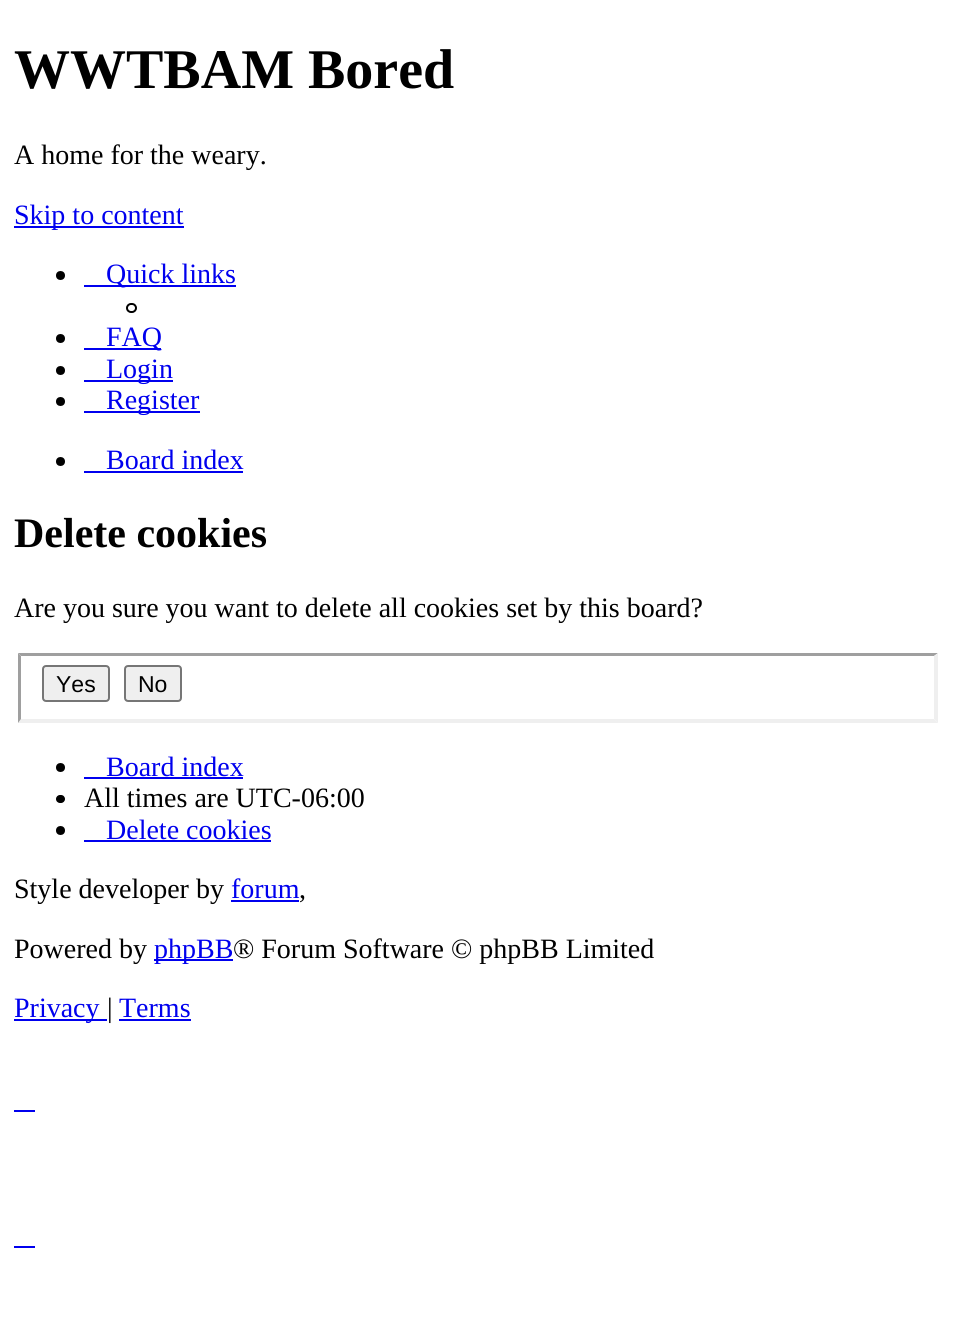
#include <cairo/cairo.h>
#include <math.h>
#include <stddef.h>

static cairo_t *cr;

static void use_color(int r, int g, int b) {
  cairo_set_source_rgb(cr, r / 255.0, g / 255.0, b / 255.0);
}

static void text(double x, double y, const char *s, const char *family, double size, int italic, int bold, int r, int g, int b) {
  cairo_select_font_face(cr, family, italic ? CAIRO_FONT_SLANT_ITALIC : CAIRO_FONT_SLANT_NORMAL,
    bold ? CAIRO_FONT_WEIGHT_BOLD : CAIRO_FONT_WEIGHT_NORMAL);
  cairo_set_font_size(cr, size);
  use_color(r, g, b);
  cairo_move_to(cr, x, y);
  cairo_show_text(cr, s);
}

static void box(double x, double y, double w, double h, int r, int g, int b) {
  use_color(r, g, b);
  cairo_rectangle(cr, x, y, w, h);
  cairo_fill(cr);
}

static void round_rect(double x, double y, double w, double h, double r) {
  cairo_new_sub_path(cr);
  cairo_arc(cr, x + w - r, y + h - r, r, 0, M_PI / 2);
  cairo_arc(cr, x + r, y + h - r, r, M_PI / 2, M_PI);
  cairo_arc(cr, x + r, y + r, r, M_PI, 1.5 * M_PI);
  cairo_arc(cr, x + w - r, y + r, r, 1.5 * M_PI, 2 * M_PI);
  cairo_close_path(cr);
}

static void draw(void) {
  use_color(255, 255, 255);
  cairo_paint(cr);
  box(14, 226, 170, 2, 0, 0, 238);
  use_color(0, 0, 0);
  cairo_arc(cr, 60.5, 275.5, 4.5, 0, 2 * M_PI);
  cairo_fill(cr);
  box(84, 285, 152, 2, 0, 0, 238);
  round_rect(127, 304, 9, 8, 4);
  use_color(0, 0, 0);
  cairo_stroke(cr);
  cairo_arc(cr, 60.5, 338.5, 4.5, 0, 2 * M_PI);
  cairo_fill(cr);
  box(84, 348, 77, 2, 0, 0, 238);
  use_color(0, 0, 0);
  cairo_arc(cr, 60.5, 370.5, 4.5, 0, 2 * M_PI);
  cairo_fill(cr);
  box(84, 380, 89, 2, 0, 0, 238);
  use_color(0, 0, 0);
  cairo_arc(cr, 60.5, 401.5, 4.5, 0, 2 * M_PI);
  cairo_fill(cr);
  box(84, 411, 116, 2, 0, 0, 238);
  use_color(0, 0, 0);
  cairo_arc(cr, 60.5, 461.5, 4.5, 0, 2 * M_PI);
  cairo_fill(cr);
  box(84, 471, 159, 2, 0, 0, 238);
  use_color(159, 159, 159);
  cairo_new_path(cr);
  cairo_move_to(cr, 18, 653);
  cairo_line_to(cr, 938, 653);
  cairo_line_to(cr, 934, 656);
  cairo_line_to(cr, 21, 656);
  cairo_close_path(cr);
  cairo_fill(cr);
  use_color(239, 239, 239);
  cairo_new_path(cr);
  cairo_move_to(cr, 938, 653);
  cairo_line_to(cr, 938, 723);
  cairo_line_to(cr, 934, 719);
  cairo_line_to(cr, 934, 656);
  cairo_close_path(cr);
  cairo_fill(cr);
  cairo_new_path(cr);
  cairo_move_to(cr, 938, 723);
  cairo_line_to(cr, 18, 723);
  cairo_line_to(cr, 21, 719);
  cairo_line_to(cr, 934, 719);
  cairo_close_path(cr);
  cairo_fill(cr);
  use_color(159, 159, 159);
  cairo_new_path(cr);
  cairo_move_to(cr, 18, 723);
  cairo_line_to(cr, 18, 653);
  cairo_line_to(cr, 21, 656);
  cairo_line_to(cr, 21, 719);
  cairo_close_path(cr);
  cairo_fill(cr);
  use_color(239, 239, 239);
  round_rect(43, 666, 66, 35, 3);
  cairo_fill_preserve(cr);
  use_color(118, 118, 118);
  cairo_stroke(cr);
  use_color(239, 239, 239);
  round_rect(125, 666, 56, 35, 3);
  cairo_fill_preserve(cr);
  use_color(118, 118, 118);
  cairo_stroke(cr);
  use_color(0, 0, 0);
  cairo_arc(cr, 60.5, 767.5, 4.5, 0, 2 * M_PI);
  cairo_fill(cr);
  box(84, 777, 159, 2, 0, 0, 238);
  use_color(0, 0, 0);
  round_rect(56, 795, 9, 8, 4);
  cairo_fill(cr);
  cairo_arc(cr, 60.5, 830.5, 4.5, 0, 2 * M_PI);
  cairo_fill(cr);
  box(84, 840, 187, 2, 0, 0, 238);
  box(231, 900, 68, 2, 0, 0, 238);
  box(154, 959, 79, 2, 0, 0, 238);
  box(14, 1019, 93, 2, 0, 0, 238);
  box(119, 1019, 72, 2, 0, 0, 238);
  box(14, 1110, 21, 2, 0, 0, 238);
  box(14, 1246, 21, 2, 0, 0, 238);
  text(14, 88, "WWTBAM Bored", "Liberation Serif", 56, 0, 1, 0, 0, 0);
  text(14, 164, "A home for the weary.", "Liberation Serif", 28, 0, 0, 0, 0, 0);
  text(14, 224, "Skip to content", "Liberation Serif", 28, 0, 0, 0, 0, 238);
  text(106, 283, "Quick links", "Liberation Serif", 28, 0, 0, 0, 0, 238);
  text(106, 346, "FAQ", "Liberation Serif", 28, 0, 0, 0, 0, 238);
  text(106, 378, "Login", "Liberation Serif", 28, 0, 0, 0, 0, 238);
  text(106, 409, "Register", "Liberation Serif", 28, 0, 0, 0, 0, 238);
  text(106, 469, "Board index", "Liberation Serif", 28, 0, 0, 0, 0, 238);
  text(14, 547, "Delete cookies", "Liberation Serif", 42, 0, 1, 0, 0, 0);
  text(14, 617, "Are you sure you want to delete all cookies set by this board?", "Liberation Serif", 28, 0, 0, 0, 0, 0);
  text(56, 692, "Yes", "Liberation Sans", 23, 0, 0, 0, 0, 0);
  text(138, 692, "No", "Liberation Sans", 23, 0, 0, 0, 0, 0);
  text(106, 776, "Board index", "Liberation Serif", 28, 0, 0, 0, 0, 238);
  text(84, 807, "All times are UTC-06:00", "Liberation Serif", 28, 0, 0, 0, 0, 0);
  text(106, 839, "Delete cookies", "Liberation Serif", 28, 0, 0, 0, 0, 238);
  text(14, 898, "Style developer by", "Liberation Serif", 28, 0, 0, 0, 0, 0);
  text(231, 898, "forum", "Liberation Serif", 28, 0, 0, 0, 0, 238);
  text(299, 898, ",", "Liberation Serif", 28, 0, 0, 0, 0, 0);
  text(14, 958, "Powered by", "Liberation Serif", 28, 0, 0, 0, 0, 0);
  text(154, 958, "phpBB", "Liberation Serif", 28, 0, 0, 0, 0, 238);
  text(233, 958, "® Forum Software © phpBB Limited", "Liberation Serif", 28, 0, 0, 0, 0, 0);
  text(14, 1017, "Privacy", "Liberation Serif", 28, 0, 0, 0, 0, 238);
  text(107, 1017, "|", "Liberation Serif", 28, 0, 0, 0, 0, 0);
  text(119, 1017, "Terms", "Liberation Serif", 28, 0, 0, 0, 0, 238);
}

int main(void) {
  cairo_surface_t *surface = cairo_image_surface_create(CAIRO_FORMAT_RGB24, 954, 1329);
  cr = cairo_create(surface);
  cairo_font_options_t *options = cairo_font_options_create();
  cairo_font_options_set_hint_metrics(options, CAIRO_HINT_METRICS_OFF);
  cairo_font_options_set_hint_style(options, CAIRO_HINT_STYLE_NONE);
  cairo_set_font_options(cr, options);
  cairo_set_miter_limit(cr, 4);
  draw();
  cairo_surface_write_to_png(surface, "out.png");
  cairo_font_options_destroy(options);
  cairo_destroy(cr);
  cairo_surface_destroy(surface);
  return 0;
}
